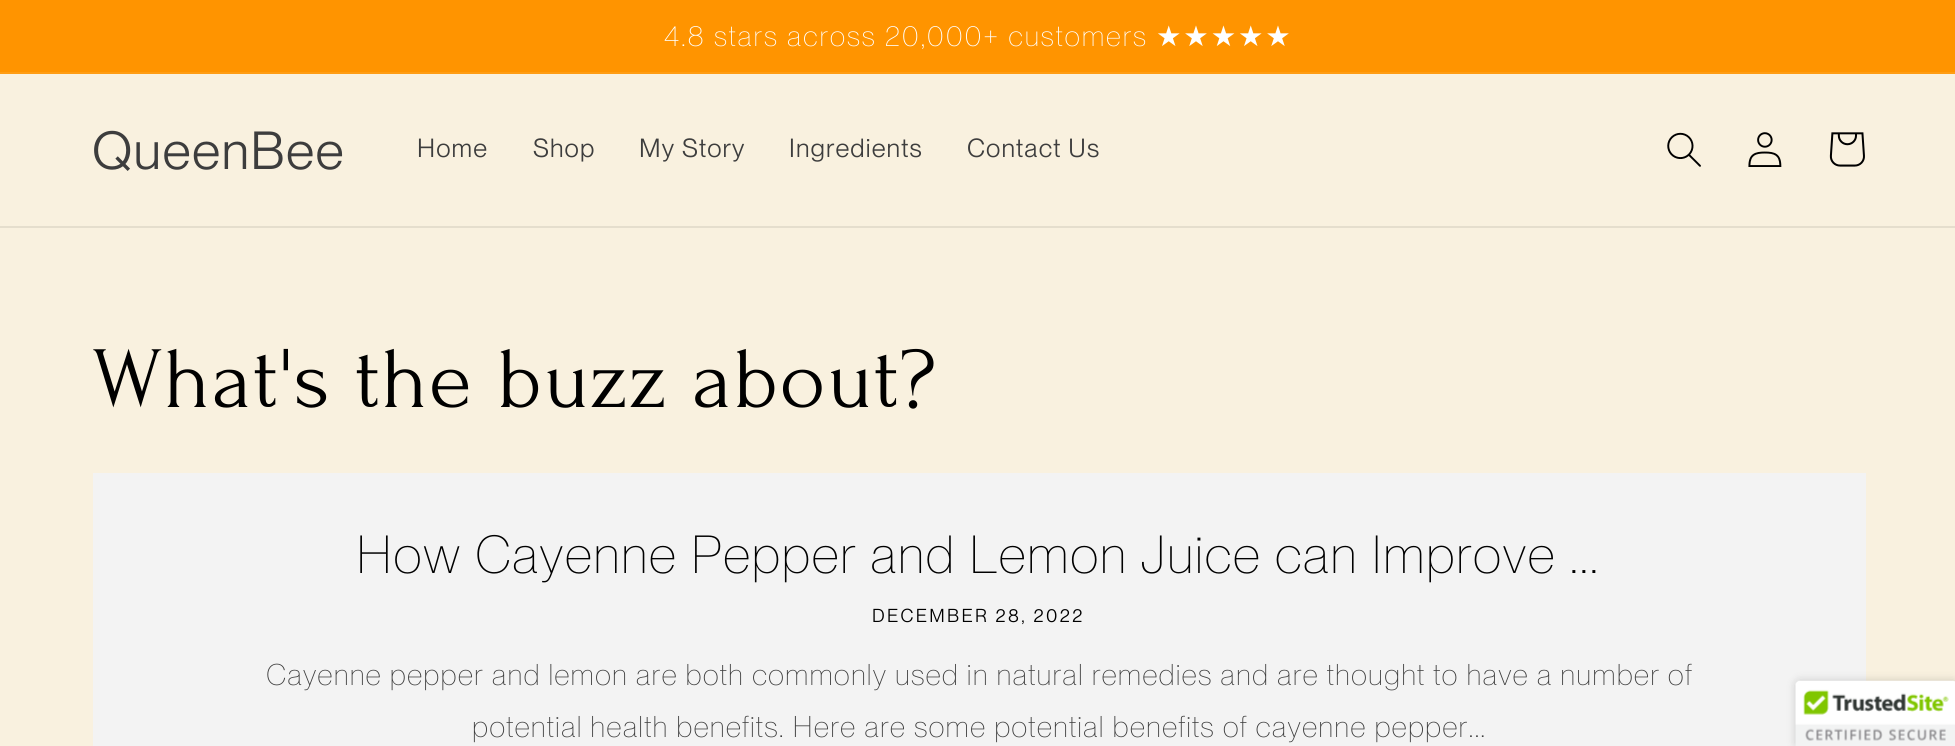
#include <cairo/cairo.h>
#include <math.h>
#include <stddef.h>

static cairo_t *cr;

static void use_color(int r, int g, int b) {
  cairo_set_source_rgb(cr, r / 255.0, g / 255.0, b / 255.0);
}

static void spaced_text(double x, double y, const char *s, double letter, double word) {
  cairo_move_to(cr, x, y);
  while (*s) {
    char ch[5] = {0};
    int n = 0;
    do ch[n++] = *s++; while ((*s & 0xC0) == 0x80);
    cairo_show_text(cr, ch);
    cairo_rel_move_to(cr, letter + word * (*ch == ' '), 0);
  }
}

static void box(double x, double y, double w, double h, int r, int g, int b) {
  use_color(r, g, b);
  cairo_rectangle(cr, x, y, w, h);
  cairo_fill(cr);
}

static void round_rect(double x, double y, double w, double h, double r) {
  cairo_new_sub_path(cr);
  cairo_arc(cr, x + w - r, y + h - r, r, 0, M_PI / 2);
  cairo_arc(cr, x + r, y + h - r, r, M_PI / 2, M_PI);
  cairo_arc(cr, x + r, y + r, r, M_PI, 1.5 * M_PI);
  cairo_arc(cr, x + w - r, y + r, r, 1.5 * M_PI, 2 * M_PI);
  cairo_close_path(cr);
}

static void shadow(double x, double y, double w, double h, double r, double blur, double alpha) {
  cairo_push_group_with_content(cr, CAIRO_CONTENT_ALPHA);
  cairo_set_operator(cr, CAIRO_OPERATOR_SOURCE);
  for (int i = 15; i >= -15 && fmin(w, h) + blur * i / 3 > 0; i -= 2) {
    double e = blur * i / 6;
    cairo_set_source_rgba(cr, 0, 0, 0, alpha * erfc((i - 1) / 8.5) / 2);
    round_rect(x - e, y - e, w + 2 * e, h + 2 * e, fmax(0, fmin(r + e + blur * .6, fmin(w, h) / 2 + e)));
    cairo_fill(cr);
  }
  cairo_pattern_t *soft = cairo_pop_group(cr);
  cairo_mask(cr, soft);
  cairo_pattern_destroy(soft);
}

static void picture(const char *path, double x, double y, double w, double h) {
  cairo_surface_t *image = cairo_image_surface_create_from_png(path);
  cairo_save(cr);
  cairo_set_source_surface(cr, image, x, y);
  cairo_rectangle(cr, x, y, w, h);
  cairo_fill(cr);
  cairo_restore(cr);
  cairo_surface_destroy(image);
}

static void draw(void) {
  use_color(249, 241, 223);
  cairo_paint(cr);
  box(0, 0, 1955, 72, 255, 148, 0);
  box(0, 72, 1955, 2, 255, 157, 20);
  box(0, 226, 1955, 2, 229, 222, 205);
  picture("img_01.png", 1667, 132, 34, 35);
  picture("img_02.png", 1748, 132, 34, 35);
  picture("img_03.png", 1829, 132, 36, 35);
  box(93, 473, 1773, 273, 243, 243, 243);
  use_color(0, 0, 0);
  shadow(1796, 681, 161, 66, 4, 4.5, 0.2);
  use_color(255, 255, 255);
  cairo_new_path(cr);
  cairo_move_to(cr, 1800, 681);
  cairo_line_to(cr, 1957, 681);
  cairo_line_to(cr, 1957, 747);
  cairo_line_to(cr, 1796, 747);
  cairo_line_to(cr, 1796, 685);
  cairo_curve_to(cr, 1796, 683, 1798, 681, 1800, 681);
  cairo_close_path(cr);
  cairo_fill(cr);
  picture("img_04.png", 1795, 680, 160, 66);
  cairo_select_font_face(cr, "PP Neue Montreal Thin", CAIRO_FONT_SLANT_NORMAL, CAIRO_FONT_WEIGHT_NORMAL);
  cairo_set_font_size(cr, 28.4);
  spaced_text(664, 46, "4.8 stars across 20,000+ customers", 1.85, 0);
  cairo_select_font_face(cr, "DejaVu Sans", CAIRO_FONT_SLANT_NORMAL, CAIRO_FONT_WEIGHT_NORMAL);
  spaced_text(1156, 46, "★★★★★", 1.85, 0);
  cairo_select_font_face(cr, "PP Neue Montreal", CAIRO_FONT_SLANT_NORMAL, CAIRO_FONT_WEIGHT_NORMAL);
  cairo_set_font_size(cr, 52.5);
  use_color(61, 61, 61);
  spaced_text(92, 169, "QueenBee", 1.3, 0);
  cairo_set_font_size(cr, 25.75);
  spaced_text(417, 157, "Home", 1.1, 0);
  spaced_text(533, 157, "Shop", 1.1, 0);
  spaced_text(639, 157, "My Story", 1.1, 0);
  spaced_text(789, 157, "Ingredients", 1.1, 0);
  spaced_text(967, 157, "Contact Us", 1.1, 0);
  cairo_select_font_face(cr, "Forum", CAIRO_FONT_SLANT_NORMAL, CAIRO_FONT_WEIGHT_NORMAL);
  cairo_set_font_size(cr, 87.5);
  use_color(0, 0, 0);
  spaced_text(92, 407, "What's the buzz about?", 1.3, 0);
  cairo_select_font_face(cr, "PP Neue Montreal Thin", CAIRO_FONT_SLANT_NORMAL, CAIRO_FONT_WEIGHT_NORMAL);
  cairo_set_font_size(cr, 52.5);
  spaced_text(356, 573, "How Cayenne Pepper and Lemon Juice can Improve ...", 1.3, 0);
  cairo_select_font_face(cr, "PP Neue Montreal", CAIRO_FONT_SLANT_NORMAL, CAIRO_FONT_WEIGHT_NORMAL);
  cairo_set_font_size(cr, 18.4);
  spaced_text(872, 622, "DECEMBER 28, 2022", 2.4, 0);
  cairo_select_font_face(cr, "PP Neue Montreal Thin", CAIRO_FONT_SLANT_NORMAL, CAIRO_FONT_WEIGHT_NORMAL);
  cairo_set_font_size(cr, 29.4);
  use_color(61, 61, 61);
  spaced_text(266, 685, "Cayenne pepper and lemon are both commonly used in natural remedies and are thought to have a number of", 1.1, 0);
  spaced_text(472, 737, "potential health benefits. Here are some potential benefits of cayenne pepper...", 1.1, 0);
}

int main(void) {
  cairo_surface_t *surface = cairo_image_surface_create(CAIRO_FORMAT_RGB24, 1955, 746);
  cr = cairo_create(surface);
  cairo_font_options_t *options = cairo_font_options_create();
  cairo_font_options_set_hint_metrics(options, CAIRO_HINT_METRICS_OFF);
  cairo_font_options_set_hint_style(options, CAIRO_HINT_STYLE_NONE);
  cairo_set_font_options(cr, options);
  cairo_set_miter_limit(cr, 4);
  draw();
  cairo_surface_write_to_png(surface, "out.png");
  cairo_font_options_destroy(options);
  cairo_destroy(cr);
  cairo_surface_destroy(surface);
  return 0;
}
